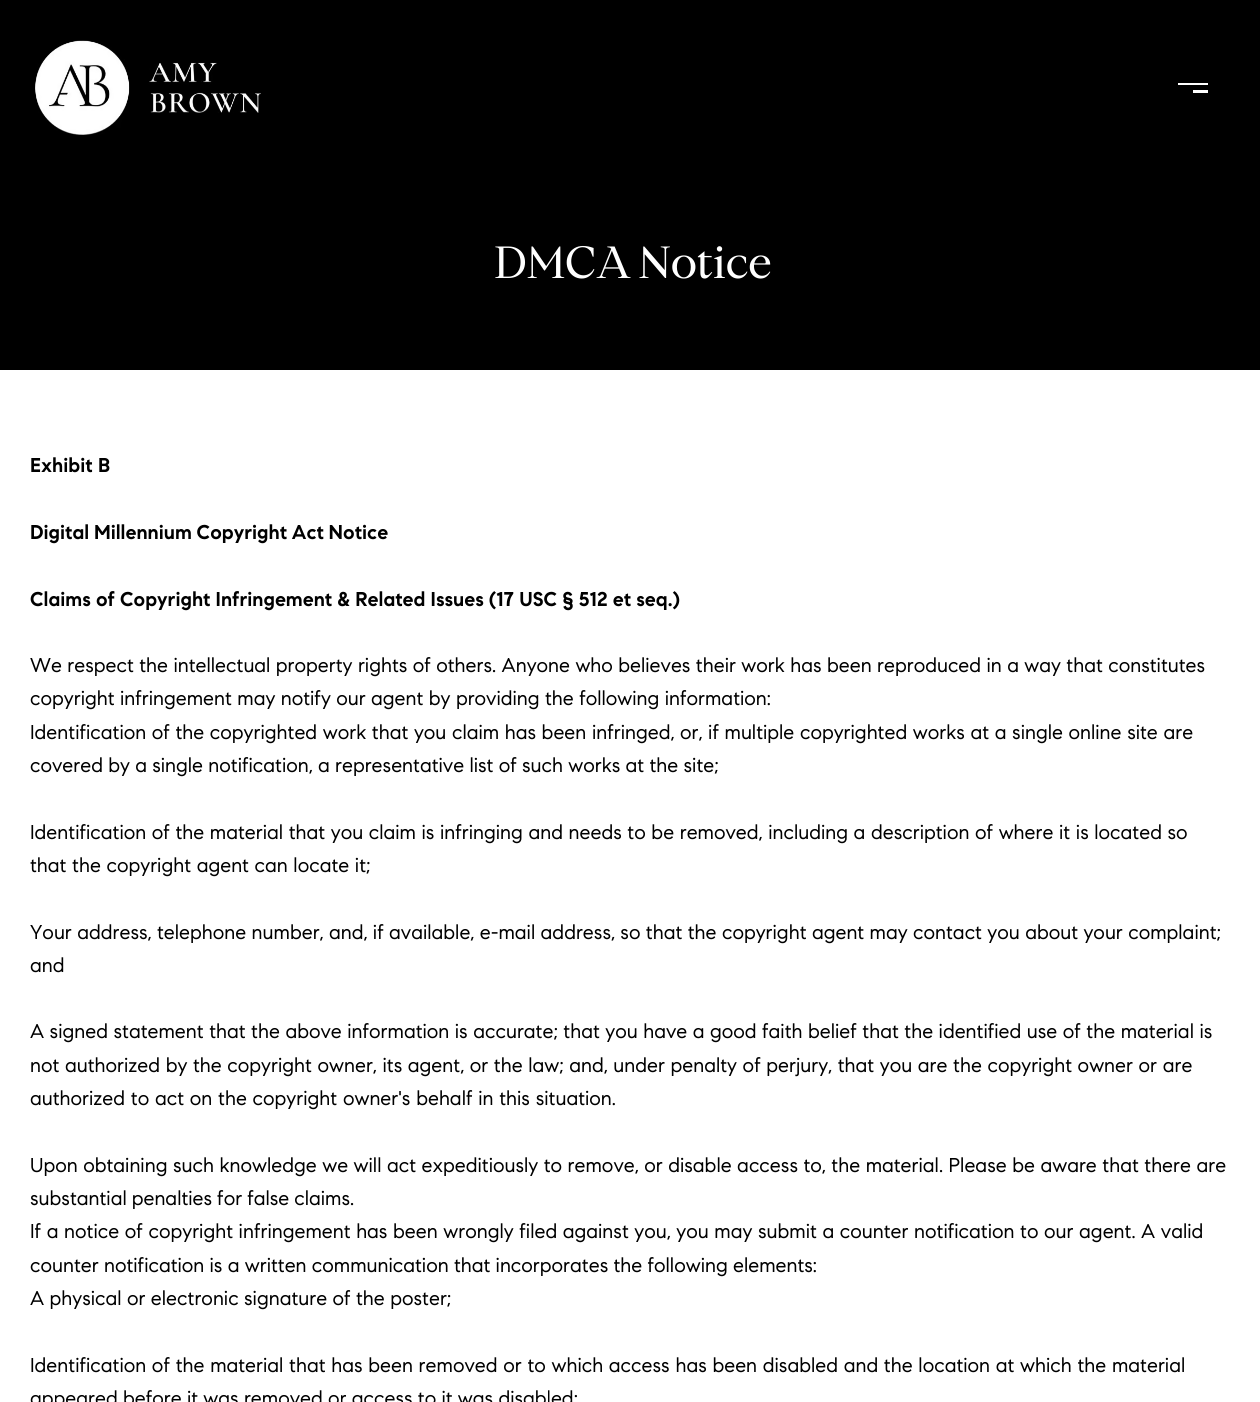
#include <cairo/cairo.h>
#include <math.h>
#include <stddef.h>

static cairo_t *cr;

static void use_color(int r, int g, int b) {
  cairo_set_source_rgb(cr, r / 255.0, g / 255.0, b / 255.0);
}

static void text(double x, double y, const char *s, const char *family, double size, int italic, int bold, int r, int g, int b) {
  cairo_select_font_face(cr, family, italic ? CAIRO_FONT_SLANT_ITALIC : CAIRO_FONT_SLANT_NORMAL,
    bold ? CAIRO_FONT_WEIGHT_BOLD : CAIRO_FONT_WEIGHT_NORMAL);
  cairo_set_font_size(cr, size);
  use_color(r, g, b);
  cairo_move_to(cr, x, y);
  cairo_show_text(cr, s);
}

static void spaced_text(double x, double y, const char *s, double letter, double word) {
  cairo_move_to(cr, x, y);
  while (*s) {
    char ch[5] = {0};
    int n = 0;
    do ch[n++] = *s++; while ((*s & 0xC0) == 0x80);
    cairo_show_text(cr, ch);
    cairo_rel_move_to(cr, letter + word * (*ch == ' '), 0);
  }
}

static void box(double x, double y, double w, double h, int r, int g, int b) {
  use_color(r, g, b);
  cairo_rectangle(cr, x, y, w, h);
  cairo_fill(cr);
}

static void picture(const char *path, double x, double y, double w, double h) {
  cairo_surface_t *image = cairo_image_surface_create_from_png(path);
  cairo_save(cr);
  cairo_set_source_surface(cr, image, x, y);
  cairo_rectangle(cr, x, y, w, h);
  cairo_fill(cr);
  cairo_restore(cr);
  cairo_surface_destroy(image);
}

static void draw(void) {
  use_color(255, 255, 255);
  cairo_paint(cr);
  box(0, 0, 1260, 370, 0, 0, 0);
  picture("img_01.png", 35, 40, 226, 95);
  box(1178, 83, 30, 2, 255, 255, 255);
  box(1193, 90, 15, 3, 255, 255, 255);
  cairo_select_font_face(cr, "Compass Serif", CAIRO_FONT_SLANT_NORMAL, CAIRO_FONT_WEIGHT_NORMAL);
  cairo_set_font_size(cr, 45);
  spaced_text(494, 278, "DMCA Notice", 0, -3);
  text(30, 472, "Exhibit B", "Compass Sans", 20, 0, 1, 0, 0, 0);
  spaced_text(30, 539, "Digital Millennium Copyright Act Notice", 0, -0.6);
  spaced_text(30, 606, "Claims of Copyright Infringement & Related Issues (17 USC § 512 et seq.)", 0, -0.25);
  cairo_select_font_face(cr, "Compass Sans", CAIRO_FONT_SLANT_NORMAL, CAIRO_FONT_WEIGHT_NORMAL);
  spaced_text(30, 672, "We respect the intellectual property rights of others. Anyone who believes their work has been reproduced in a way that constitutes", 0, -0.6);
  spaced_text(30, 705, "copyright infringement may notify our agent by providing the following information:", 0, -0.6);
  spaced_text(30, 739, "Identification of the copyrighted work that you claim has been infringed, or, if multiple copyrighted works at a single online site are", 0, -0.4);
  spaced_text(30, 772, "covered by a single notification, a representative list of such works at the site;", 0, -0.75);
  spaced_text(30, 839, "Identification of the material that you claim is infringing and needs to be removed, including a description of where it is located so", 0, -0.4);
  spaced_text(30, 872, "that the copyright agent can locate it;", 0, -0.4);
  spaced_text(30, 939, "Your address, telephone number, and, if available, e-mail address, so that the copyright agent may contact you about your complaint;", 0, -0.6);
  text(30, 972, "and", "Compass Sans", 20, 0, 0, 0, 0, 0);
  spaced_text(30, 1038, "A signed statement that the above information is accurate; that you have a good faith belief that the identified use of the material is", 0, -0.5);
  spaced_text(30, 1072, "not authorized by the copyright owner, its agent, or the law; and, under penalty of perjury, that you are the copyright owner or are", 0, -0.4);
  spaced_text(30, 1105, "authorized to act on the copyright owner's behalf in this situation.", 0, -0.25);
  spaced_text(30, 1172, "Upon obtaining such knowledge we will act expeditiously to remove, or disable access to, the material. Please be aware that there are", 0, -0.5);
  spaced_text(30, 1205, "substantial penalties for false claims.", 0, -1);
  spaced_text(30, 1238, "If a notice of copyright infringement has been wrongly filed against you, you may submit a counter notification to our agent. A valid", 0, -0.4);
  spaced_text(30, 1272, "counter notification is a written communication that incorporates the following elements:", 0, -0.75);
  spaced_text(30, 1305, "A physical or electronic signature of the poster;", 0, -0.6);
  spaced_text(30, 1372, "Identification of the material that has been removed or to which access has been disabled and the location at which the material", 0, -0.3);
  spaced_text(30, 1405, "appeared before it was removed or access to it was disabled;", 0, -0.75);
}

int main(void) {
  cairo_surface_t *surface = cairo_image_surface_create(CAIRO_FORMAT_RGB24, 1260, 1402);
  cr = cairo_create(surface);
  cairo_font_options_t *options = cairo_font_options_create();
  cairo_font_options_set_hint_metrics(options, CAIRO_HINT_METRICS_OFF);
  cairo_font_options_set_hint_style(options, CAIRO_HINT_STYLE_NONE);
  cairo_set_font_options(cr, options);
  cairo_set_miter_limit(cr, 4);
  draw();
  cairo_surface_write_to_png(surface, "out.png");
  cairo_font_options_destroy(options);
  cairo_destroy(cr);
  cairo_surface_destroy(surface);
  return 0;
}
